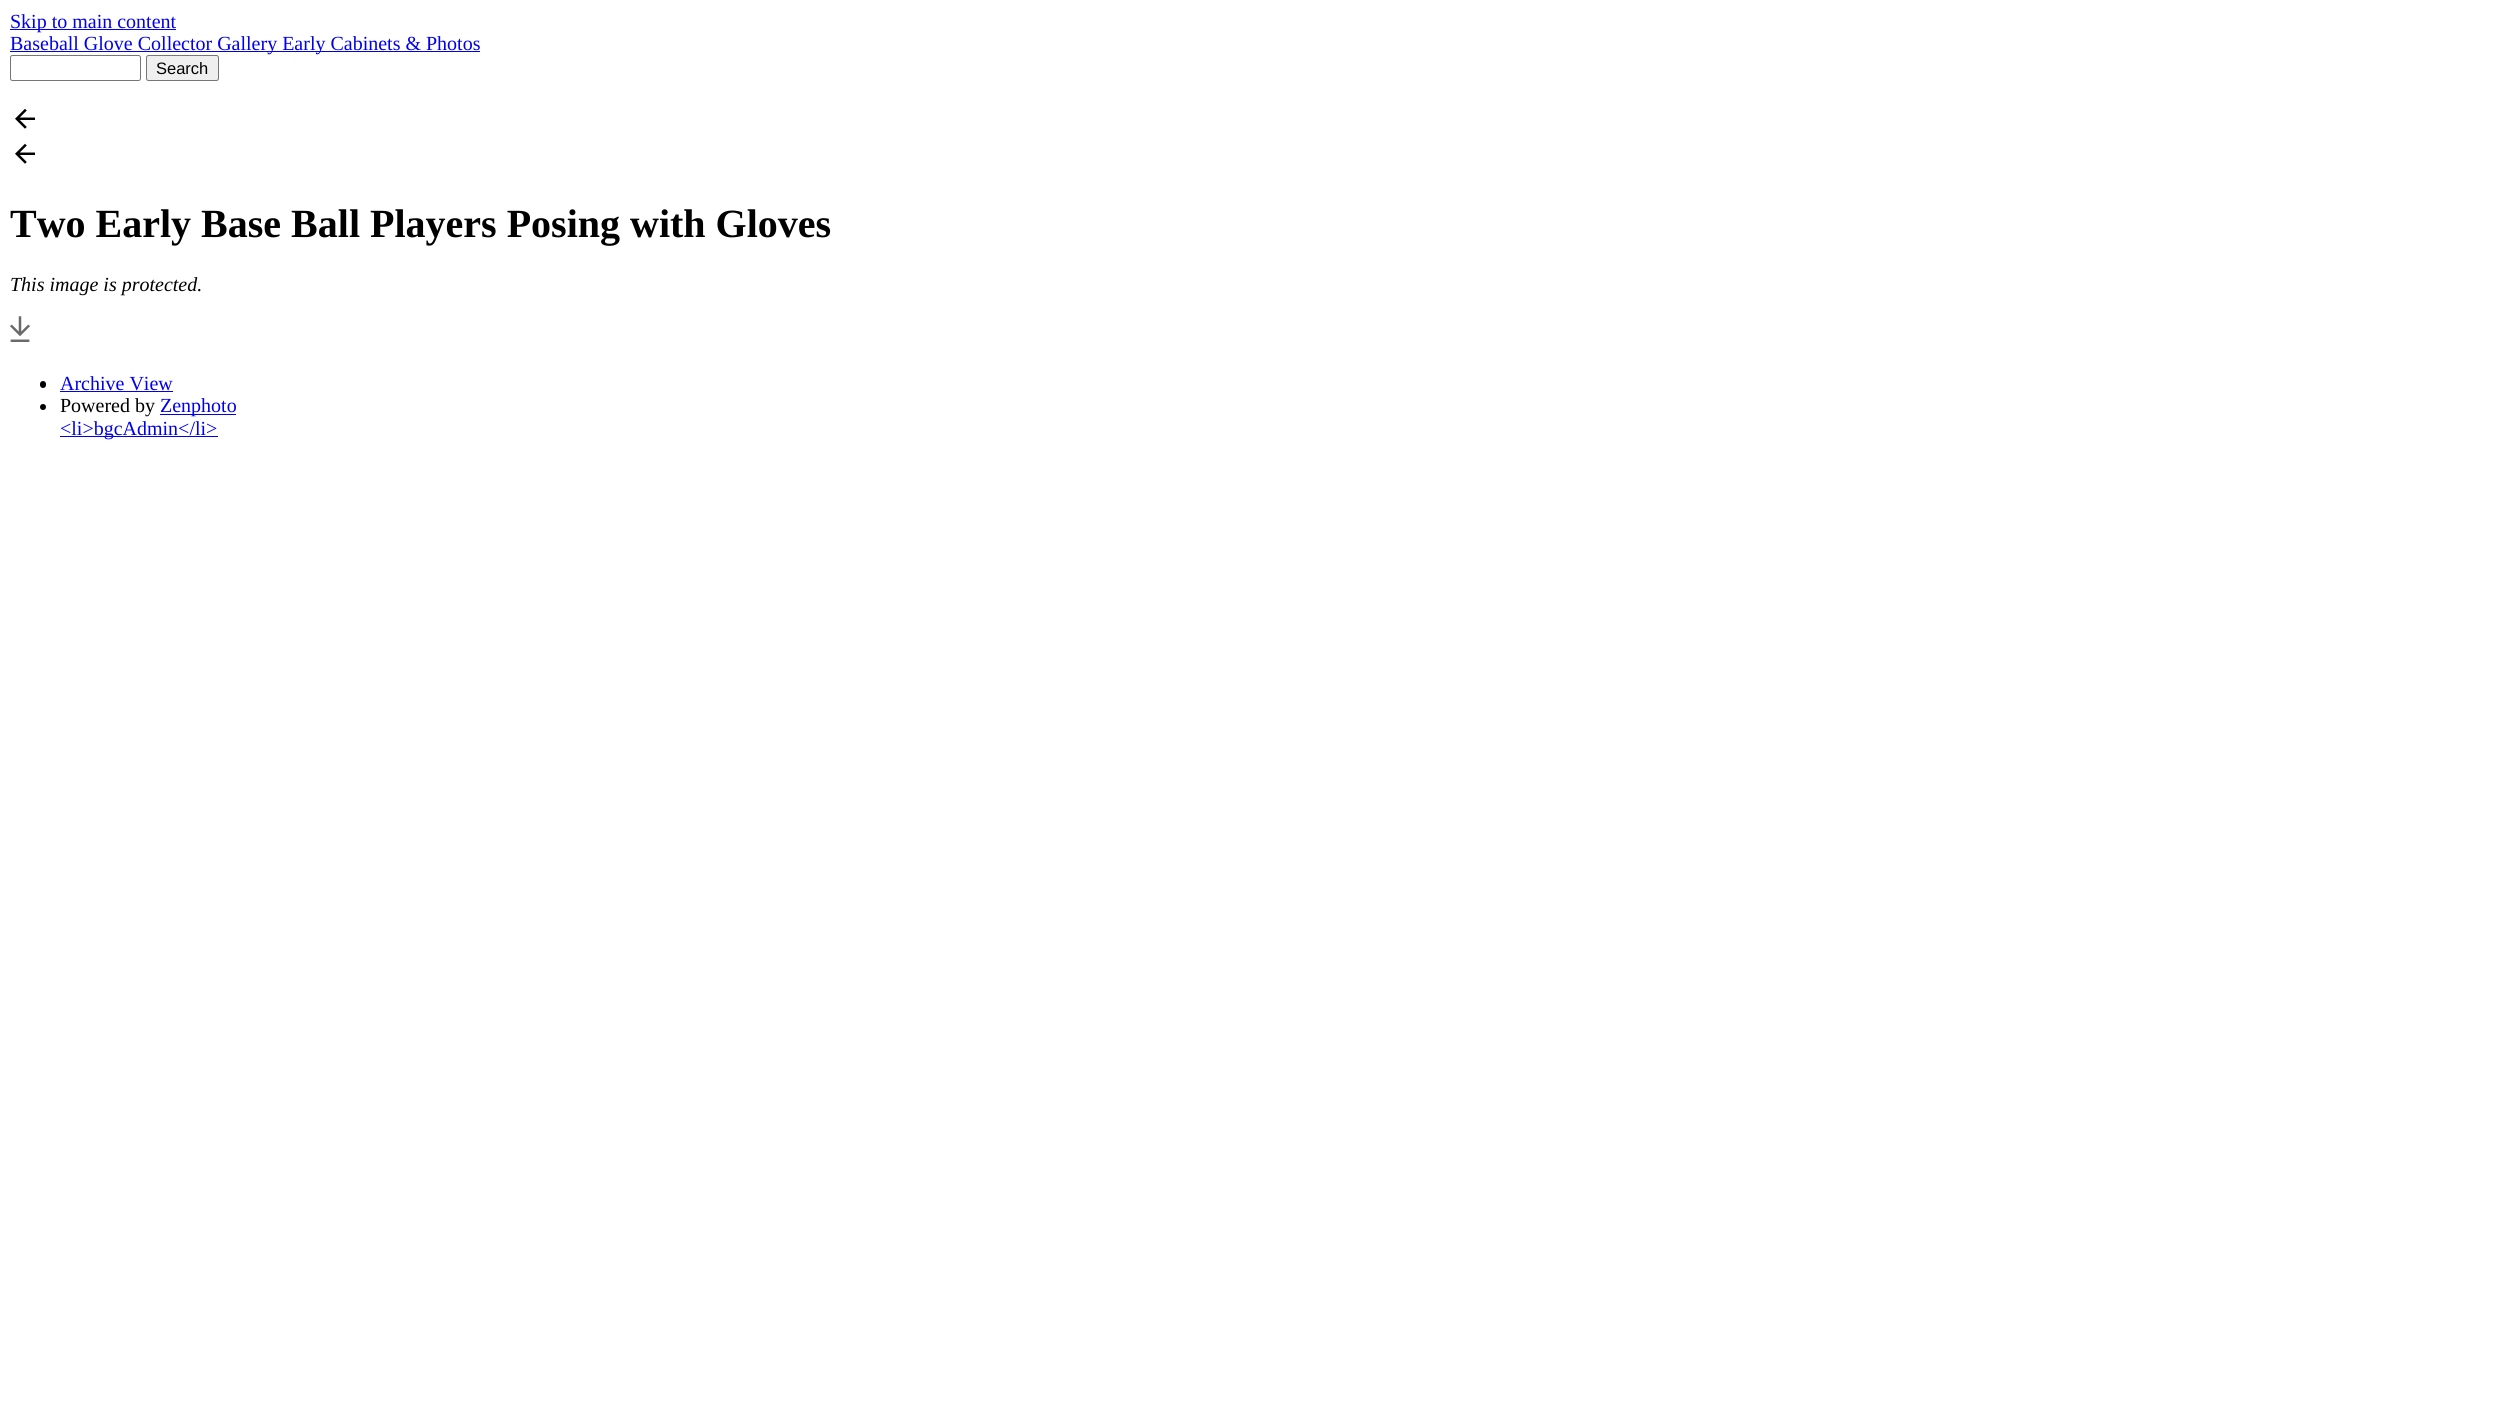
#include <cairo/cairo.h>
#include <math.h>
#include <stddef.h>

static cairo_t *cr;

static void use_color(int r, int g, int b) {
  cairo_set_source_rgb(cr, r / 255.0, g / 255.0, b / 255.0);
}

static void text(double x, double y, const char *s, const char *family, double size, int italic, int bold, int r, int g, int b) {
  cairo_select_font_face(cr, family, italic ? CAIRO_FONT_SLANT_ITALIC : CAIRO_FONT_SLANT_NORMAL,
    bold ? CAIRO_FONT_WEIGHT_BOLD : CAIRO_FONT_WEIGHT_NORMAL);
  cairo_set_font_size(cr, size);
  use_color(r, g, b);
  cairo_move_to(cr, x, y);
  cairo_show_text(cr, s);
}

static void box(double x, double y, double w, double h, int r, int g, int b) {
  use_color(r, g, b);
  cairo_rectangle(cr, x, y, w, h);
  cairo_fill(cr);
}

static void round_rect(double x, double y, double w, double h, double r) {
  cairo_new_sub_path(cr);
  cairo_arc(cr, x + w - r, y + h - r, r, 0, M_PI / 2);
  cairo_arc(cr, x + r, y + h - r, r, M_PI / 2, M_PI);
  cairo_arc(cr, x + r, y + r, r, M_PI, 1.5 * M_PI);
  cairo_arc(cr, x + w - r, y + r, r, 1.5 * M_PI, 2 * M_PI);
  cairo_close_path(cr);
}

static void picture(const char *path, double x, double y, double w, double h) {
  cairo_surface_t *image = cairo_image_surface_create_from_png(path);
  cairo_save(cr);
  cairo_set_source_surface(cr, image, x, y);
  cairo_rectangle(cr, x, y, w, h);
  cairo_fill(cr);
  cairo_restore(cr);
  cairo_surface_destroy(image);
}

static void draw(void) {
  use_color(255, 255, 255);
  cairo_paint(cr);
  box(10, 29, 166, 1, 0, 0, 238);
  box(10, 51, 470, 1, 0, 0, 238);
  round_rect(10.5, 55.5, 130, 25, 2);
  use_color(118, 118, 118);
  cairo_set_line_width(cr, 1);
  cairo_stroke(cr);
  use_color(239, 239, 239);
  round_rect(146.5, 55.5, 72, 25, 2);
  cairo_fill_preserve(cr);
  use_color(118, 118, 118);
  cairo_stroke(cr);
  picture("img_01.png", 15, 108, 20, 21);
  picture("img_01.png", 15, 143, 20, 21);
  picture("img_02.png", 10, 316, 20, 26);
  use_color(0, 0, 0);
  round_rect(40, 381, 6, 7, 3);
  cairo_fill(cr);
  box(60, 391, 113, 1, 0, 0, 238);
  use_color(0, 0, 0);
  cairo_arc(cr, 43, 407, 3, 0, 2 * M_PI);
  cairo_fill(cr);
  box(160, 414, 76, 1, 0, 0, 238);
  box(60, 436, 158, 1, 0, 0, 238);
  text(10, 28, "Skip to main content", "Liberation Serif", 20, 0, 0, 0, 0, 238);
  text(10, 50, "Baseball Glove Collector Gallery Early Cabinets & Photos", "Liberation Serif", 20, 0, 0, 0, 0, 238);
  text(156, 74, "Search", "Liberation Sans", 16.5, 0, 0, 0, 0, 0);
  text(10, 237, "Two Early Base Ball Players Posing with Gloves", "Liberation Serif", 40, 0, 1, 0, 0, 0);
  text(10, 291, "This image is protected.", "Liberation Serif", 20, 1, 0, 0, 0, 0);
  text(60, 390, "Archive View", "Liberation Serif", 20, 0, 0, 0, 0, 238);
  text(60, 412, "Powered by", "Liberation Serif", 20, 0, 0, 0, 0, 0);
  text(160, 412, "Zenphoto", "Liberation Serif", 20, 0, 0, 0, 0, 238);
  text(60, 435, "<li>bgcAdmin</li>", "Liberation Serif", 20, 0, 0, 0, 0, 238);
}

int main(void) {
  cairo_surface_t *surface = cairo_image_surface_create(CAIRO_FORMAT_RGB24, 2498, 1418);
  cr = cairo_create(surface);
  cairo_font_options_t *options = cairo_font_options_create();
  cairo_font_options_set_hint_metrics(options, CAIRO_HINT_METRICS_OFF);
  cairo_font_options_set_hint_style(options, CAIRO_HINT_STYLE_NONE);
  cairo_set_font_options(cr, options);
  cairo_set_miter_limit(cr, 4);
  draw();
  cairo_surface_write_to_png(surface, "out.png");
  cairo_font_options_destroy(options);
  cairo_destroy(cr);
  cairo_surface_destroy(surface);
  return 0;
}
